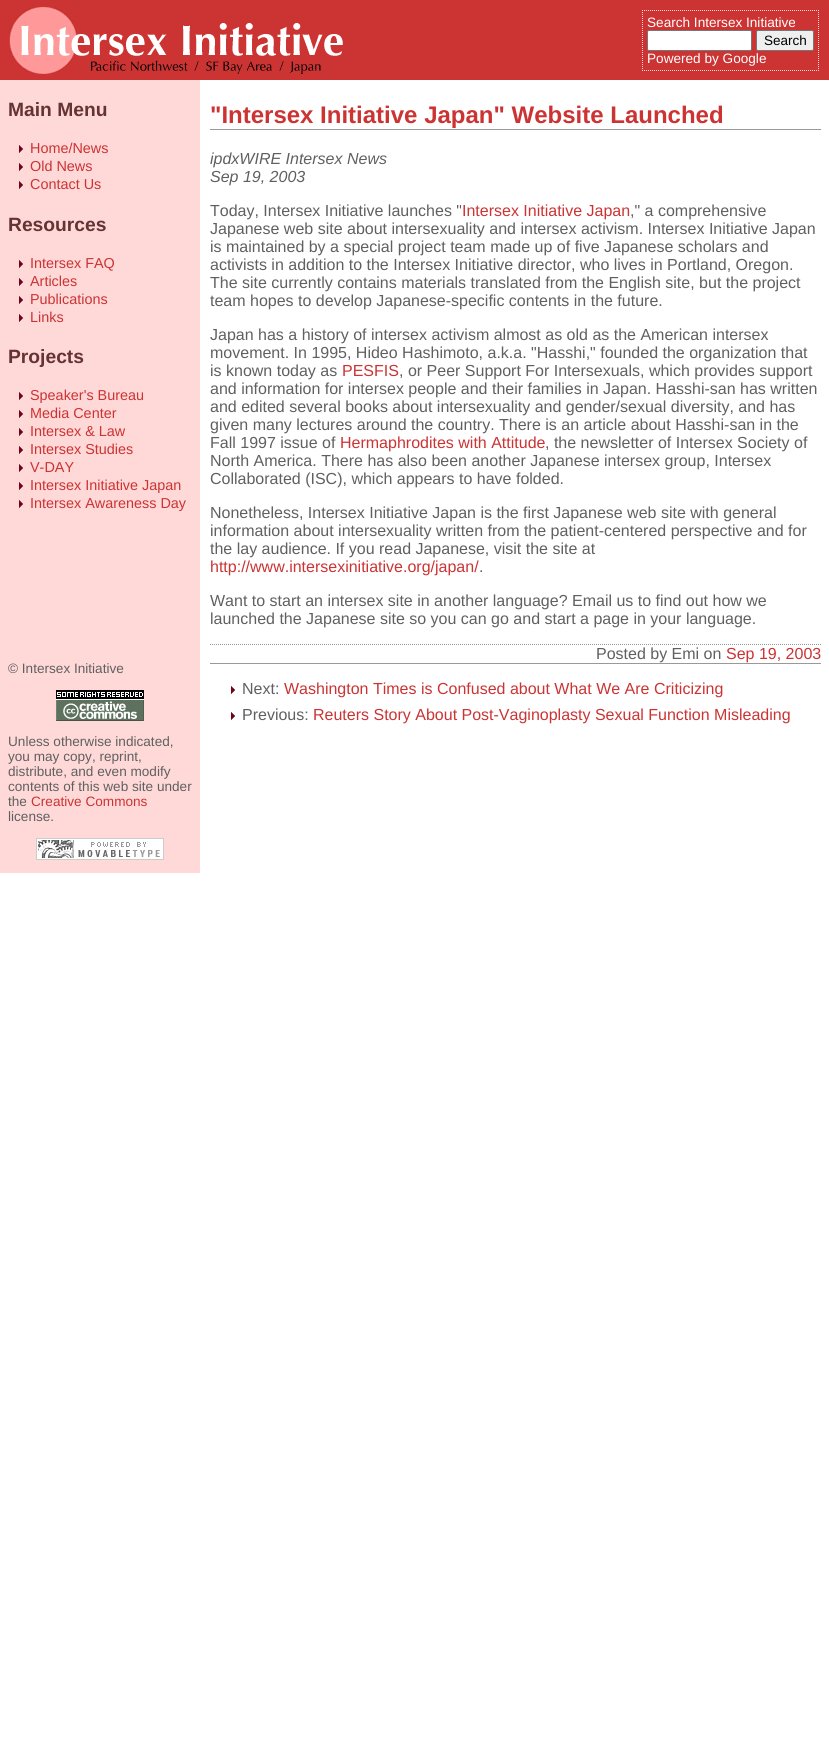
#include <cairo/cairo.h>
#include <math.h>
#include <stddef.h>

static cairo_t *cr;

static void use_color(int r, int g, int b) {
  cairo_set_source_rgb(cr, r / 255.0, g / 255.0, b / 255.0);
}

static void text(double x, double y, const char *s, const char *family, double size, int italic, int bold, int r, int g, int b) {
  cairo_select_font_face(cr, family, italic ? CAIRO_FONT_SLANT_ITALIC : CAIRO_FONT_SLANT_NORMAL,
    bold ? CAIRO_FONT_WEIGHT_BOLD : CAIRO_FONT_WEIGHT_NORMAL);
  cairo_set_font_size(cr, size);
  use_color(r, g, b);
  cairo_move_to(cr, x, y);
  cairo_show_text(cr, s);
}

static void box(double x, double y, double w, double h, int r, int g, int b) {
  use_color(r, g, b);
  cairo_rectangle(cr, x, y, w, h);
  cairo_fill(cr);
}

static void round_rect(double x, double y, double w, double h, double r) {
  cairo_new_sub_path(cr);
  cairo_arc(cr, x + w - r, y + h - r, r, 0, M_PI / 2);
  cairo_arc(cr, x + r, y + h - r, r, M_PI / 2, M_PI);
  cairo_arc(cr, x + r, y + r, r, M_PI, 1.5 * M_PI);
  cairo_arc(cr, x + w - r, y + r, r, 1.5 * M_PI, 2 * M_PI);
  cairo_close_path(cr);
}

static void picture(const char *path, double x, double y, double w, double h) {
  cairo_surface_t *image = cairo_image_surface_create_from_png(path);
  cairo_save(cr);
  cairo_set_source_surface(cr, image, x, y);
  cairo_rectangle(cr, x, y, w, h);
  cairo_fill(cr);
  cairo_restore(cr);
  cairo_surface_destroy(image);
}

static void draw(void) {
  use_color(255, 255, 255);
  cairo_paint(cr);
  box(0, 0, 829, 80, 204, 51, 51);
  picture("img_01.png", 9, 7, 334, 67);
  cairo_new_path(cr);
  cairo_move_to(cr, 642, 10.5);
  cairo_line_to(cr, 819, 10.5);
  use_color(255, 216, 216);
  cairo_set_line_width(cr, 1);
  cairo_set_dash(cr, (double[]){1, 1}, 2, 0);
  cairo_stroke(cr);
  cairo_new_path(cr);
  cairo_move_to(cr, 818.5, 10);
  cairo_line_to(cr, 818.5, 71);
  cairo_stroke(cr);
  cairo_new_path(cr);
  cairo_move_to(cr, 642, 70.5);
  cairo_line_to(cr, 819, 70.5);
  cairo_stroke(cr);
  cairo_new_path(cr);
  cairo_move_to(cr, 642.5, 10);
  cairo_line_to(cr, 642.5, 71);
  cairo_stroke(cr);
  use_color(255, 255, 255);
  round_rect(647.5, 30.5, 104, 20, 1.5);
  cairo_fill_preserve(cr);
  use_color(118, 118, 118);
  cairo_set_dash(cr, NULL, 0, 0);
  cairo_stroke(cr);
  use_color(239, 239, 239);
  round_rect(756.5, 30.5, 57, 20, 1.5);
  cairo_fill_preserve(cr);
  use_color(118, 118, 118);
  cairo_stroke(cr);
  box(0, 80, 200, 793, 255, 216, 216);
  picture("img_02.png", 19, 145, 4, 8);
  picture("img_02.png", 19, 163, 4, 8);
  picture("img_02.png", 19, 181, 4, 8);
  picture("img_02.png", 19, 260, 4, 8);
  picture("img_02.png", 19, 278, 4, 8);
  picture("img_02.png", 19, 296, 4, 8);
  picture("img_02.png", 19, 314, 4, 8);
  picture("img_02.png", 19, 392, 4, 8);
  picture("img_02.png", 19, 410, 4, 8);
  picture("img_02.png", 19, 428, 4, 8);
  picture("img_02.png", 19, 446, 4, 8);
  picture("img_02.png", 19, 464, 4, 8);
  picture("img_02.png", 19, 482, 4, 8);
  picture("img_02.png", 19, 500, 4, 8);
  picture("img_03.png", 56, 690, 88, 31);
  picture("img_04.png", 36, 838, 128, 22);
  box(210, 129, 611, 1, 153, 153, 153);
  cairo_new_path(cr);
  cairo_move_to(cr, 210, 644.5);
  cairo_line_to(cr, 821, 644.5);
  cairo_set_dash(cr, (double[]){1, 1}, 2, 0);
  cairo_stroke(cr);
  box(210, 663, 611, 1, 153, 153, 153);
  picture("img_05.png", 231, 686, 4, 8);
  picture("img_05.png", 231, 712, 4, 8);
  text(647, 27, "Search Intersex Initiative", "Liberation Sans", 13.6, 0, 0, 255, 255, 255);
  text(764, 45, "Search", "Liberation Sans", 13.5, 0, 0, 0, 0, 0);
  text(647, 63, "Powered by Google", "Liberation Sans", 13.6, 0, 0, 255, 255, 255);
  text(8, 116, "Main Menu", "Liberation Sans", 19.25, 0, 1, 102, 51, 51);
  text(30, 153, "Home/News", "Liberation Sans", 14.4, 0, 0, 204, 51, 51);
  text(30, 171, "Old News", "Liberation Sans", 14.4, 0, 0, 204, 51, 51);
  text(30, 189, "Contact Us", "Liberation Sans", 14.4, 0, 0, 204, 51, 51);
  text(8, 231, "Resources", "Liberation Sans", 19.25, 0, 1, 102, 51, 51);
  text(30, 268, "Intersex FAQ", "Liberation Sans", 14.4, 0, 0, 204, 51, 51);
  text(30, 286, "Articles", "Liberation Sans", 14.4, 0, 0, 204, 51, 51);
  text(30, 304, "Publications", "Liberation Sans", 14.4, 0, 0, 204, 51, 51);
  text(30, 322, "Links", "Liberation Sans", 14.4, 0, 0, 204, 51, 51);
  text(8, 363, "Projects", "Liberation Sans", 19.25, 0, 1, 102, 51, 51);
  text(30, 400, "Speaker's Bureau", "Liberation Sans", 14.4, 0, 0, 204, 51, 51);
  text(30, 418, "Media Center", "Liberation Sans", 14.4, 0, 0, 204, 51, 51);
  text(30, 436, "Intersex & Law", "Liberation Sans", 14.4, 0, 0, 204, 51, 51);
  text(30, 454, "Intersex Studies", "Liberation Sans", 14.4, 0, 0, 204, 51, 51);
  text(30, 472, "V-DAY", "Liberation Sans", 14.4, 0, 0, 204, 51, 51);
  text(30, 490, "Intersex Initiative Japan", "Liberation Sans", 14.4, 0, 0, 204, 51, 51);
  text(30, 508, "Intersex Awareness Day", "Liberation Sans", 14.4, 0, 0, 204, 51, 51);
  text(8, 673, "© Intersex Initiative", "Liberation Sans", 13.6, 0, 0, 96, 96, 96);
  text(8, 746, "Unless otherwise indicated,", "Liberation Sans", 13.6, 0, 0, 96, 96, 96);
  text(8, 761, "you may copy, reprint,", "Liberation Sans", 13.6, 0, 0, 96, 96, 96);
  text(8, 776, "distribute, and even modify", "Liberation Sans", 13.6, 0, 0, 96, 96, 96);
  text(8, 791, "contents of this web site under", "Liberation Sans", 13.6, 0, 0, 96, 96, 96);
  text(8, 806, "the", "Liberation Sans", 13.6, 0, 0, 96, 96, 96);
  text(31, 806, "Creative Commons", "Liberation Sans", 13.6, 0, 0, 204, 51, 51);
  text(8, 821, "license.", "Liberation Sans", 13.6, 0, 0, 96, 96, 96);
  text(210, 123, "\"Intersex Initiative Japan\" Website Launched", "Liberation Sans", 24, 0, 1, 204, 51, 51);
  text(210, 164, "ipdxWIRE Intersex News", "Liberation Sans", 16, 1, 0, 96, 96, 96);
  text(210, 182, "Sep 19, 2003", "Liberation Sans", 16, 1, 0, 96, 96, 96);
  text(210, 216, "Today, Intersex Initiative launches \"", "Liberation Sans", 16, 0, 0, 96, 96, 96);
  text(462, 216, "Intersex Initiative Japan", "Liberation Sans", 16, 0, 0, 204, 51, 51);
  text(630, 216, ",\" a comprehensive", "Liberation Sans", 16, 0, 0, 96, 96, 96);
  text(210, 234, "Japanese web site about intersexuality and intersex activism. Intersex Initiative Japan", "Liberation Sans", 16, 0, 0, 96, 96, 96);
  text(210, 252, "is maintained by a special project team made up of five Japanese scholars and", "Liberation Sans", 16, 0, 0, 96, 96, 96);
  text(210, 270, "activists in addition to the Intersex Initiative director, who lives in Portland, Oregon.", "Liberation Sans", 16, 0, 0, 96, 96, 96);
  text(210, 288, "The site currently contains materials translated from the English site, but the project", "Liberation Sans", 16, 0, 0, 96, 96, 96);
  text(210, 306, "team hopes to develop Japanese-specific contents in the future.", "Liberation Sans", 16, 0, 0, 96, 96, 96);
  text(210, 340, "Japan has a history of intersex activism almost as old as the American intersex", "Liberation Sans", 16, 0, 0, 96, 96, 96);
  text(210, 358, "movement. In 1995, Hideo Hashimoto, a.k.a. \"Hasshi,\" founded the organization that", "Liberation Sans", 16, 0, 0, 96, 96, 96);
  text(210, 376, "is known today as", "Liberation Sans", 16, 0, 0, 96, 96, 96);
  text(342, 376, "PESFIS", "Liberation Sans", 16, 0, 0, 204, 51, 51);
  text(399, 376, ", or Peer Support For Intersexuals, which provides support", "Liberation Sans", 16, 0, 0, 96, 96, 96);
  text(210, 394, "and information for intersex people and their families in Japan. Hasshi-san has written", "Liberation Sans", 16, 0, 0, 96, 96, 96);
  text(210, 412, "and edited several books about intersexuality and gender/sexual diversity, and has", "Liberation Sans", 16, 0, 0, 96, 96, 96);
  text(210, 430, "given many lectures around the country. There is an article about Hasshi-san in the", "Liberation Sans", 16, 0, 0, 96, 96, 96);
  text(210, 448, "Fall 1997 issue of", "Liberation Sans", 16, 0, 0, 96, 96, 96);
  text(340, 448, "Hermaphrodites with Attitude", "Liberation Sans", 16, 0, 0, 204, 51, 51);
  text(545, 448, ", the newsletter of Intersex Society of", "Liberation Sans", 16, 0, 0, 96, 96, 96);
  text(210, 466, "North America. There has also been another Japanese intersex group, Intersex", "Liberation Sans", 16, 0, 0, 96, 96, 96);
  text(210, 484, "Collaborated (ISC), which appears to have folded.", "Liberation Sans", 16, 0, 0, 96, 96, 96);
  text(210, 518, "Nonetheless, Intersex Initiative Japan is the first Japanese web site with general", "Liberation Sans", 16, 0, 0, 96, 96, 96);
  text(210, 536, "information about intersexuality written from the patient-centered perspective and for", "Liberation Sans", 16, 0, 0, 96, 96, 96);
  text(210, 554, "the lay audience. If you read Japanese, visit the site at", "Liberation Sans", 16, 0, 0, 96, 96, 96);
  text(210, 572, "http://www.intersexinitiative.org/japan/", "Liberation Sans", 16, 0, 0, 204, 51, 51);
  text(479, 572, ".", "Liberation Sans", 16, 0, 0, 96, 96, 96);
  text(210, 606, "Want to start an intersex site in another language? Email us to find out how we", "Liberation Sans", 16, 0, 0, 96, 96, 96);
  text(210, 624, "launched the Japanese site so you can go and start a page in your language.", "Liberation Sans", 16, 0, 0, 96, 96, 96);
  text(596, 659, "Posted by Emi on", "Liberation Sans", 16, 0, 0, 96, 96, 96);
  text(726, 659, "Sep 19, 2003", "Liberation Sans", 16, 0, 0, 204, 51, 51);
  text(242, 694, "Next:", "Liberation Sans", 16, 0, 0, 96, 96, 96);
  text(284, 694, "Washington Times is Confused about What We Are Criticizing", "Liberation Sans", 16, 0, 0, 204, 51, 51);
  text(242, 720, "Previous:", "Liberation Sans", 16, 0, 0, 96, 96, 96);
  text(313, 720, "Reuters Story About Post-Vaginoplasty Sexual Function Misleading", "Liberation Sans", 16, 0, 0, 204, 51, 51);
}

int main(void) {
  cairo_surface_t *surface = cairo_image_surface_create(CAIRO_FORMAT_RGB24, 829, 1753);
  cr = cairo_create(surface);
  cairo_font_options_t *options = cairo_font_options_create();
  cairo_font_options_set_hint_metrics(options, CAIRO_HINT_METRICS_OFF);
  cairo_font_options_set_hint_style(options, CAIRO_HINT_STYLE_NONE);
  cairo_set_font_options(cr, options);
  cairo_set_miter_limit(cr, 4);
  draw();
  cairo_surface_write_to_png(surface, "out.png");
  cairo_font_options_destroy(options);
  cairo_destroy(cr);
  cairo_surface_destroy(surface);
  return 0;
}
